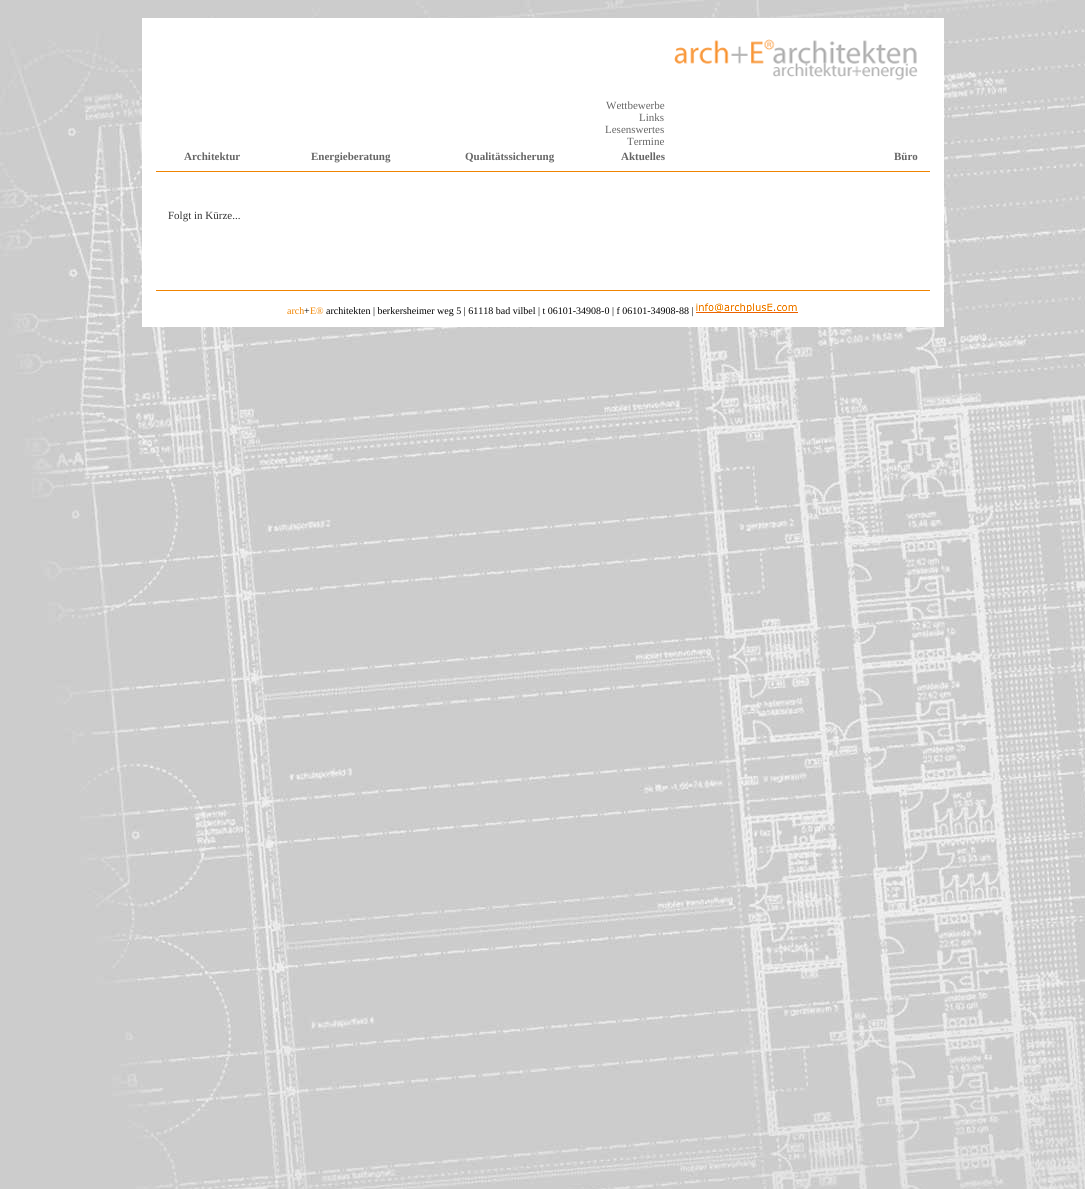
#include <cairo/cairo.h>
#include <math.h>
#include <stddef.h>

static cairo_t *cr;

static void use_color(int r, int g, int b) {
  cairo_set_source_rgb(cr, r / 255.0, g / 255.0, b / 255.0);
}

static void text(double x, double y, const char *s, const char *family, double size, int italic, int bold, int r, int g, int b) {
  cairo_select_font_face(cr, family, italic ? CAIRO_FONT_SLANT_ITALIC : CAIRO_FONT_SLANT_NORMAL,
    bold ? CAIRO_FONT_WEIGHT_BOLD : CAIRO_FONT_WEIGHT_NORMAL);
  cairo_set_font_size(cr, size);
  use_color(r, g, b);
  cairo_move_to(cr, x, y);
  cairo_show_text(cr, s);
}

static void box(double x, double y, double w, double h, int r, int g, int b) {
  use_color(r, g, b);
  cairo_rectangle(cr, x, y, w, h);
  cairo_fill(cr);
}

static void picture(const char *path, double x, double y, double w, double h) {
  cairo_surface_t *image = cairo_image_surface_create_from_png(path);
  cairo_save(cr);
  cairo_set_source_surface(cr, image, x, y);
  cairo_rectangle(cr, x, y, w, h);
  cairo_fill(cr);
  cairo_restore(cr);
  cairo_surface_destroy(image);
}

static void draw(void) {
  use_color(255, 255, 255);
  cairo_paint(cr);
  picture("img_01.png", 0, 0, 1085, 1189);
  box(142, 18, 802, 309, 255, 255, 255);
  picture("img_02.png", 674, 39, 244, 42);
  box(156, 171, 774, 1, 240, 132, 0);
  box(156, 290, 774, 1, 240, 132, 0);
  picture("img_03.png", 696, 303, 102, 10);
  text(606, 109, "Wettbewerbe", "Liberation Serif", 11, 0, 0, 102, 102, 102);
  text(639, 121, "Links", "Liberation Serif", 11, 0, 0, 102, 102, 102);
  text(605, 133, "Lesenswertes", "Liberation Serif", 11, 0, 0, 102, 102, 102);
  text(627, 145, "Termine", "Liberation Serif", 11, 0, 0, 102, 102, 102);
  text(184, 160, "Architektur", "Liberation Serif", 11, 0, 1, 102, 102, 102);
  text(311, 160, "Energieberatung", "Liberation Serif", 11, 0, 1, 102, 102, 102);
  text(465, 160, "Qualitätssicherung", "Liberation Serif", 11, 0, 1, 102, 102, 102);
  text(621, 160, "Aktuelles", "Liberation Serif", 11, 0, 1, 102, 102, 102);
  text(894, 160, "Büro", "Liberation Serif", 11, 0, 1, 102, 102, 102);
  text(168, 219, "Folgt in Kürze...", "Liberation Serif", 11, 0, 0, 51, 51, 51);
  text(287, 314, "arch", "Liberation Serif", 10, 0, 0, 240, 132, 0);
  text(304, 314, "+", "Liberation Serif", 10, 0, 0, 0, 0, 0);
  text(310, 314, "E®", "Liberation Serif", 10, 0, 0, 240, 132, 0);
  text(326, 314, "architekten | berkersheimer weg 5 | 61118 bad vilbel | t 06101-34908-0 | f 06101-34908-88 |", "Liberation Serif", 10, 0, 0, 0, 0, 0);
}

int main(void) {
  cairo_surface_t *surface = cairo_image_surface_create(CAIRO_FORMAT_RGB24, 1085, 1189);
  cr = cairo_create(surface);
  cairo_font_options_t *options = cairo_font_options_create();
  cairo_font_options_set_hint_metrics(options, CAIRO_HINT_METRICS_OFF);
  cairo_font_options_set_hint_style(options, CAIRO_HINT_STYLE_NONE);
  cairo_set_font_options(cr, options);
  cairo_set_miter_limit(cr, 4);
  draw();
  cairo_surface_write_to_png(surface, "out.png");
  cairo_font_options_destroy(options);
  cairo_destroy(cr);
  cairo_surface_destroy(surface);
  return 0;
}
